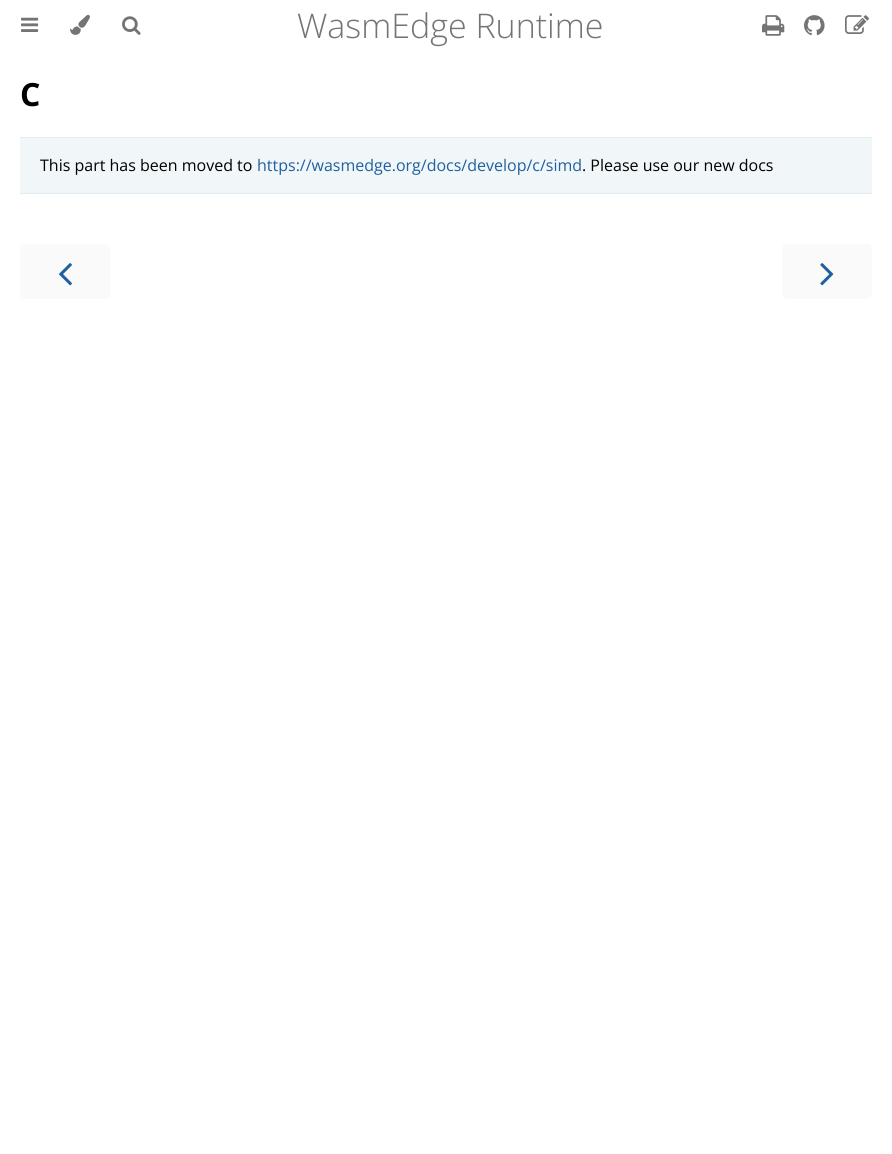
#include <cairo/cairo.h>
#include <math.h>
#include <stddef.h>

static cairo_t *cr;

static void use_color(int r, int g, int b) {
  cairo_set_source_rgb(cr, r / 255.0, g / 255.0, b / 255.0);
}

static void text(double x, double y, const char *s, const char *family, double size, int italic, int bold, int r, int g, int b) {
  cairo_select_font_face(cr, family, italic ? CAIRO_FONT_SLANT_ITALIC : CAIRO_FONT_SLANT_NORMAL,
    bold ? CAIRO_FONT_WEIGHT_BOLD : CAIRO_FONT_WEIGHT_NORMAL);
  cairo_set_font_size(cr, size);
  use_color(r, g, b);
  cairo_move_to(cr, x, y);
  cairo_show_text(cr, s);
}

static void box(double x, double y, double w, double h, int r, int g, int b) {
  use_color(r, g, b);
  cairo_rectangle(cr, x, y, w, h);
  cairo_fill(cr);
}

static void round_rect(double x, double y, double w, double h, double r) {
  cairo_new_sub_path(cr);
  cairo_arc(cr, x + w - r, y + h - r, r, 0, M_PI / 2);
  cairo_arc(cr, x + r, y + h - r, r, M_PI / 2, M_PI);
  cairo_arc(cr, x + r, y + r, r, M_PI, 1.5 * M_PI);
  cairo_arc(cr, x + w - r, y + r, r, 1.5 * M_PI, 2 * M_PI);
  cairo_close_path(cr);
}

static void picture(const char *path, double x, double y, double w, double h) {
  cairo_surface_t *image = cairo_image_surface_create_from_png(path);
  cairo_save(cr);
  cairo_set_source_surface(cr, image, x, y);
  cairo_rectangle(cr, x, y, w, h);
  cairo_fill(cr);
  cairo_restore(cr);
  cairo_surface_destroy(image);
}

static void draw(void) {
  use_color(255, 255, 255);
  cairo_paint(cr);
  picture("img_01.png", 21, 17, 18, 15);
  picture("img_02.png", 70, 14, 20, 21);
  picture("img_03.png", 122, 16, 19, 19);
  picture("img_04.png", 762, 15, 23, 21);
  picture("img_05.png", 804, 15, 21, 21);
  picture("img_06.png", 845, 15, 24, 19);
  box(20, 138, 852, 55, 241, 246, 249);
  box(20, 137, 852, 1, 224, 236, 241);
  box(20, 193, 852, 1, 224, 236, 241);
  use_color(250, 250, 250);
  round_rect(20, 244, 90, 55, 5);
  cairo_fill(cr);
  picture("img_07.png", 59, 263, 13, 23);
  round_rect(782, 244, 90, 55, 5);
  cairo_fill(cr);
  picture("img_08.png", 820, 263, 14, 23);
  text(297, 38, "WasmEdge Runtime", "Open Sans Light", 34, 0, 0, 116, 116, 116);
  text(20, 106, "C", "Open Sans", 32, 0, 1, 0, 0, 0);
  text(40, 171, "This part has been moved to", "Open Sans", 16, 0, 0, 0, 0, 0);
  text(257, 171, "https://wasmedge.org/docs/develop/c/simd", "Open Sans", 16, 0, 0, 32, 96, 159);
  text(582, 171, ". Please use our new docs", "Open Sans", 16, 0, 0, 0, 0, 0);
}

int main(void) {
  cairo_surface_t *surface = cairo_image_surface_create(CAIRO_FORMAT_RGB24, 892, 1154);
  cr = cairo_create(surface);
  cairo_font_options_t *options = cairo_font_options_create();
  cairo_font_options_set_hint_metrics(options, CAIRO_HINT_METRICS_OFF);
  cairo_font_options_set_hint_style(options, CAIRO_HINT_STYLE_NONE);
  cairo_set_font_options(cr, options);
  cairo_set_miter_limit(cr, 4);
  draw();
  cairo_surface_write_to_png(surface, "out.png");
  cairo_font_options_destroy(options);
  cairo_destroy(cr);
  cairo_surface_destroy(surface);
  return 0;
}
